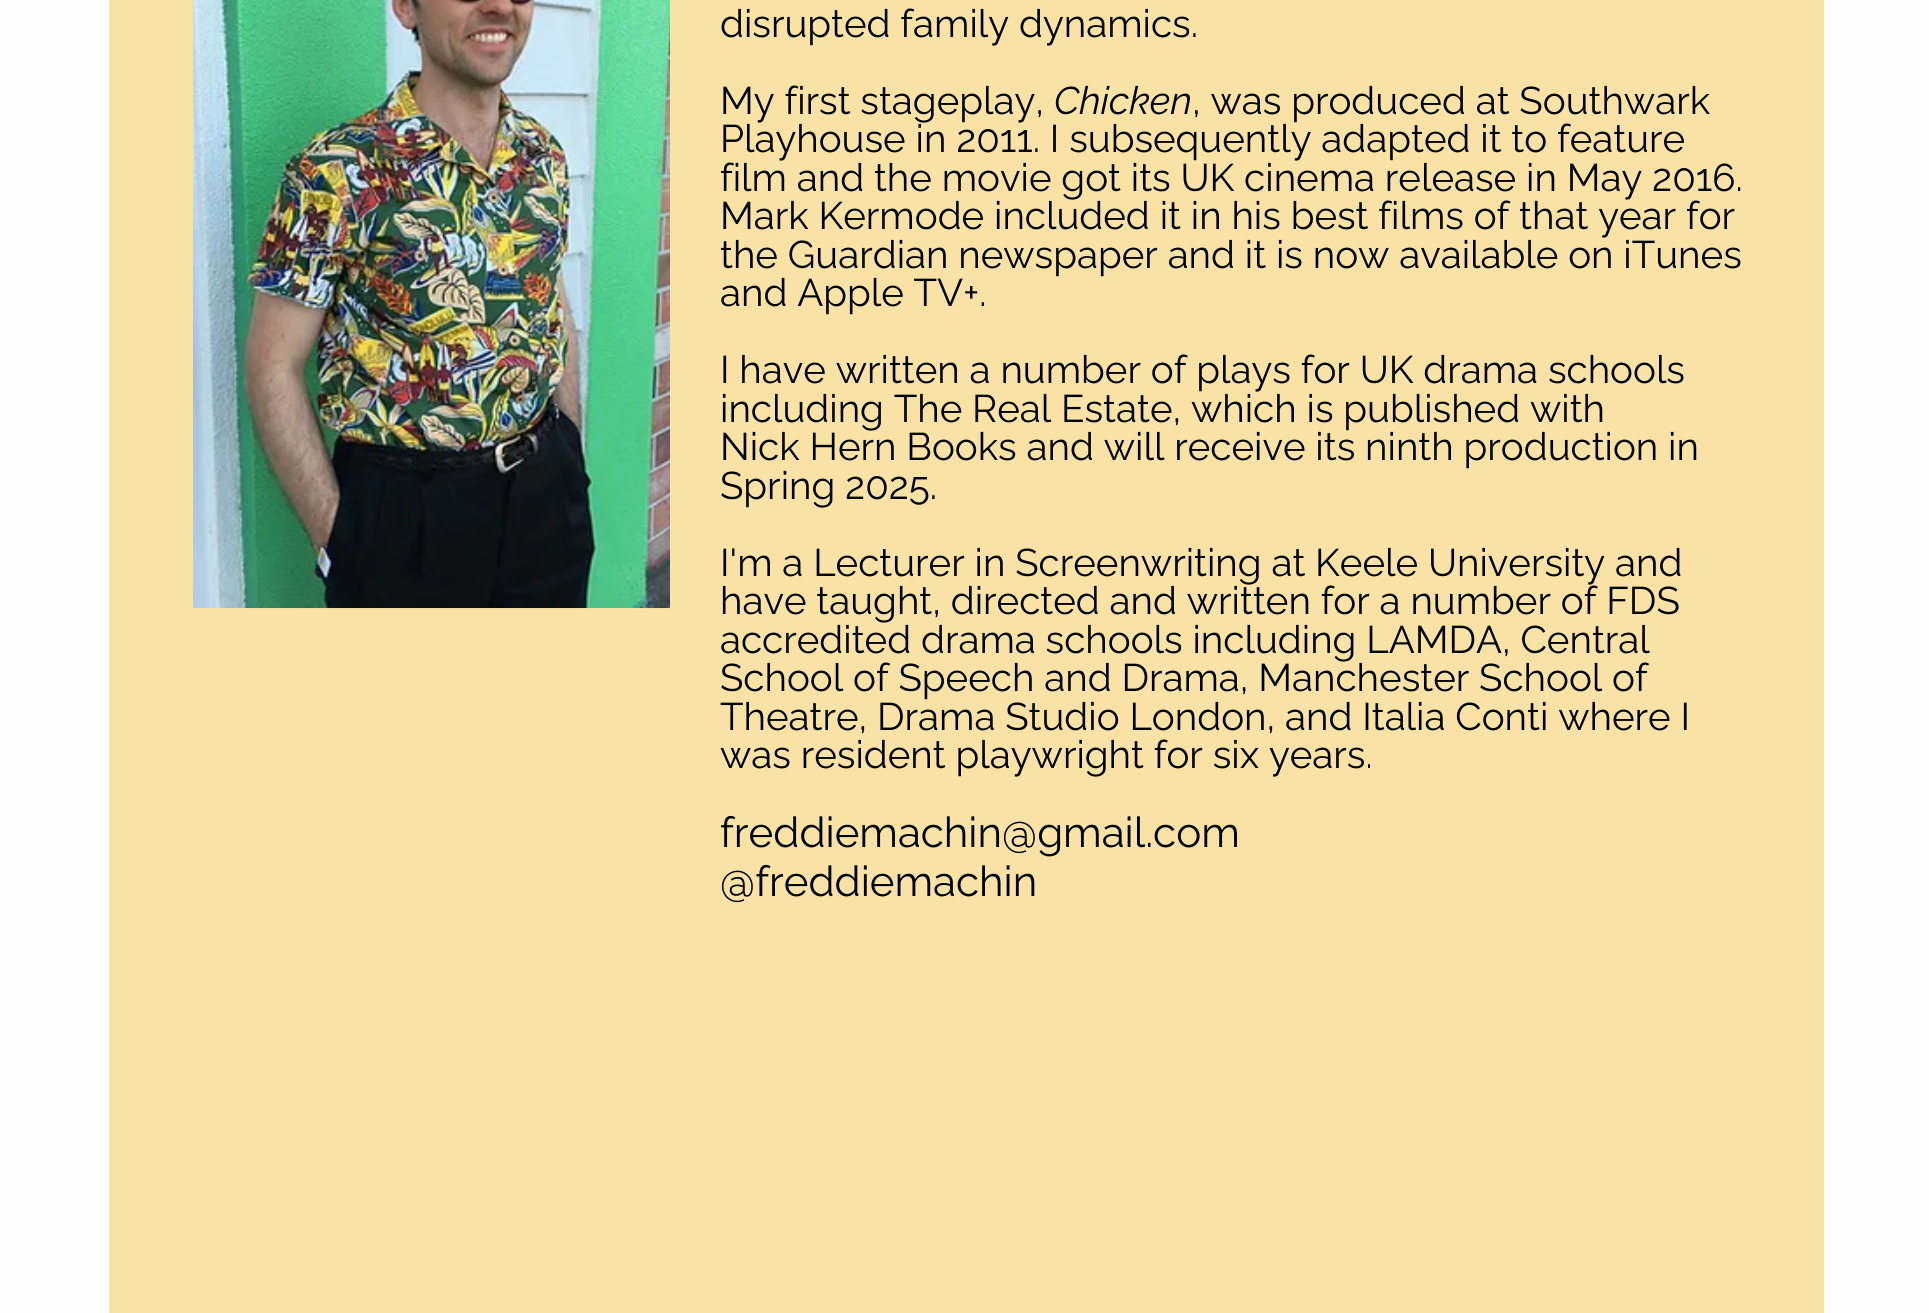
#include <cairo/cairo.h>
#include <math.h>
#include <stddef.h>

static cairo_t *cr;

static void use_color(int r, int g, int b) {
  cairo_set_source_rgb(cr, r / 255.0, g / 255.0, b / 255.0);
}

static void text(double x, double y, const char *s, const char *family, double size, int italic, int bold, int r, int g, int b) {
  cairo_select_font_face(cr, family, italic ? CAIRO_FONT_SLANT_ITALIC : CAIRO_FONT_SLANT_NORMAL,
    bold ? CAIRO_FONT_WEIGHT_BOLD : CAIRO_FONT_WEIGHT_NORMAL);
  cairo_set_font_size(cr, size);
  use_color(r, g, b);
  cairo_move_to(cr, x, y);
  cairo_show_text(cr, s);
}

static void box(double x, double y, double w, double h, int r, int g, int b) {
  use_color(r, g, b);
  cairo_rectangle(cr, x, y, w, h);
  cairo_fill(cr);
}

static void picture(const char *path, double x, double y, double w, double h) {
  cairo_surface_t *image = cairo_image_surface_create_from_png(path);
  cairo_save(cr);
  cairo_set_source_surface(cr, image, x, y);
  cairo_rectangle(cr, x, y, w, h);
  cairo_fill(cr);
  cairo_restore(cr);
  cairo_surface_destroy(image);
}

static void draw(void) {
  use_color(254, 253, 253);
  cairo_paint(cr);
  box(109, 0, 1715, 1313, 249, 226, 166);
  picture("img_01.png", 193, 0, 477, 609);
  text(720, 37, "disrupted family dynamics.", "Raleway", 38.5, 0, 0, 0, 0, 0);
  text(720, 114, "My first stageplay,", "Raleway", 38.5, 0, 0, 0, 0, 0);
  text(1054, 114, "Chicken", "Raleway", 38.5, 1, 0, 0, 0, 0);
  text(1192, 114, ", was produced at Southwark", "Raleway", 38.5, 0, 0, 0, 0, 0);
  text(720, 152, "Playhouse in 2011. I subsequently adapted it to feature", "Raleway", 38.5, 0, 0, 0, 0, 0);
  text(720, 191, "film and the movie got its UK cinema release in May 2016.", "Raleway", 38.5, 0, 0, 0, 0, 0);
  text(720, 229, "Mark Kermode included it in his best films of that year for", "Raleway", 38.5, 0, 0, 0, 0, 0);
  text(720, 268, "the Guardian newspaper and it is now available on iTunes", "Raleway", 38.5, 0, 0, 0, 0, 0);
  text(720, 306, "and Apple TV+.", "Raleway", 38.5, 0, 0, 0, 0, 0);
  text(720, 383, "I have written a number of plays for UK drama schools", "Raleway", 38.5, 0, 0, 0, 0, 0);
  text(720, 422, "including The Real Estate, which is published with", "Raleway", 38.5, 0, 0, 0, 0, 0);
  text(720, 460, "Nick Hern Books and will receive its ninth production in", "Raleway", 38.5, 0, 0, 0, 0, 0);
  text(720, 499, "Spring 2025.", "Raleway", 38.5, 0, 0, 0, 0, 0);
  text(720, 576, "I'm a Lecturer in Screenwriting at Keele University and", "Raleway", 38.5, 0, 0, 0, 0, 0);
  text(720, 614, "have taught, directed and written for a number of FDS", "Raleway", 38.5, 0, 0, 0, 0, 0);
  text(720, 653, "accredited drama schools including LAMDA, Central", "Raleway", 38.5, 0, 0, 0, 0, 0);
  text(720, 691, "School of Speech and Drama, Manchester School of", "Raleway", 38.5, 0, 0, 0, 0, 0);
  text(720, 730, "Theatre, Drama Studio London, and Italia Conti where I", "Raleway", 38.5, 0, 0, 0, 0, 0);
  text(720, 768, "was resident playwright for six years.", "Raleway", 38.5, 0, 0, 0, 0, 0);
  text(720, 847, "freddiemachin@gmail.com", "Raleway", 42, 0, 0, 0, 0, 0);
  text(720, 896, "@freddiemachin", "Raleway", 42, 0, 0, 0, 0, 0);
}

int main(void) {
  cairo_surface_t *surface = cairo_image_surface_create(CAIRO_FORMAT_RGB24, 1929, 1313);
  cr = cairo_create(surface);
  cairo_font_options_t *options = cairo_font_options_create();
  cairo_font_options_set_hint_metrics(options, CAIRO_HINT_METRICS_OFF);
  cairo_font_options_set_hint_style(options, CAIRO_HINT_STYLE_NONE);
  cairo_set_font_options(cr, options);
  cairo_set_miter_limit(cr, 4);
  draw();
  cairo_surface_write_to_png(surface, "out.png");
  cairo_font_options_destroy(options);
  cairo_destroy(cr);
  cairo_surface_destroy(surface);
  return 0;
}
